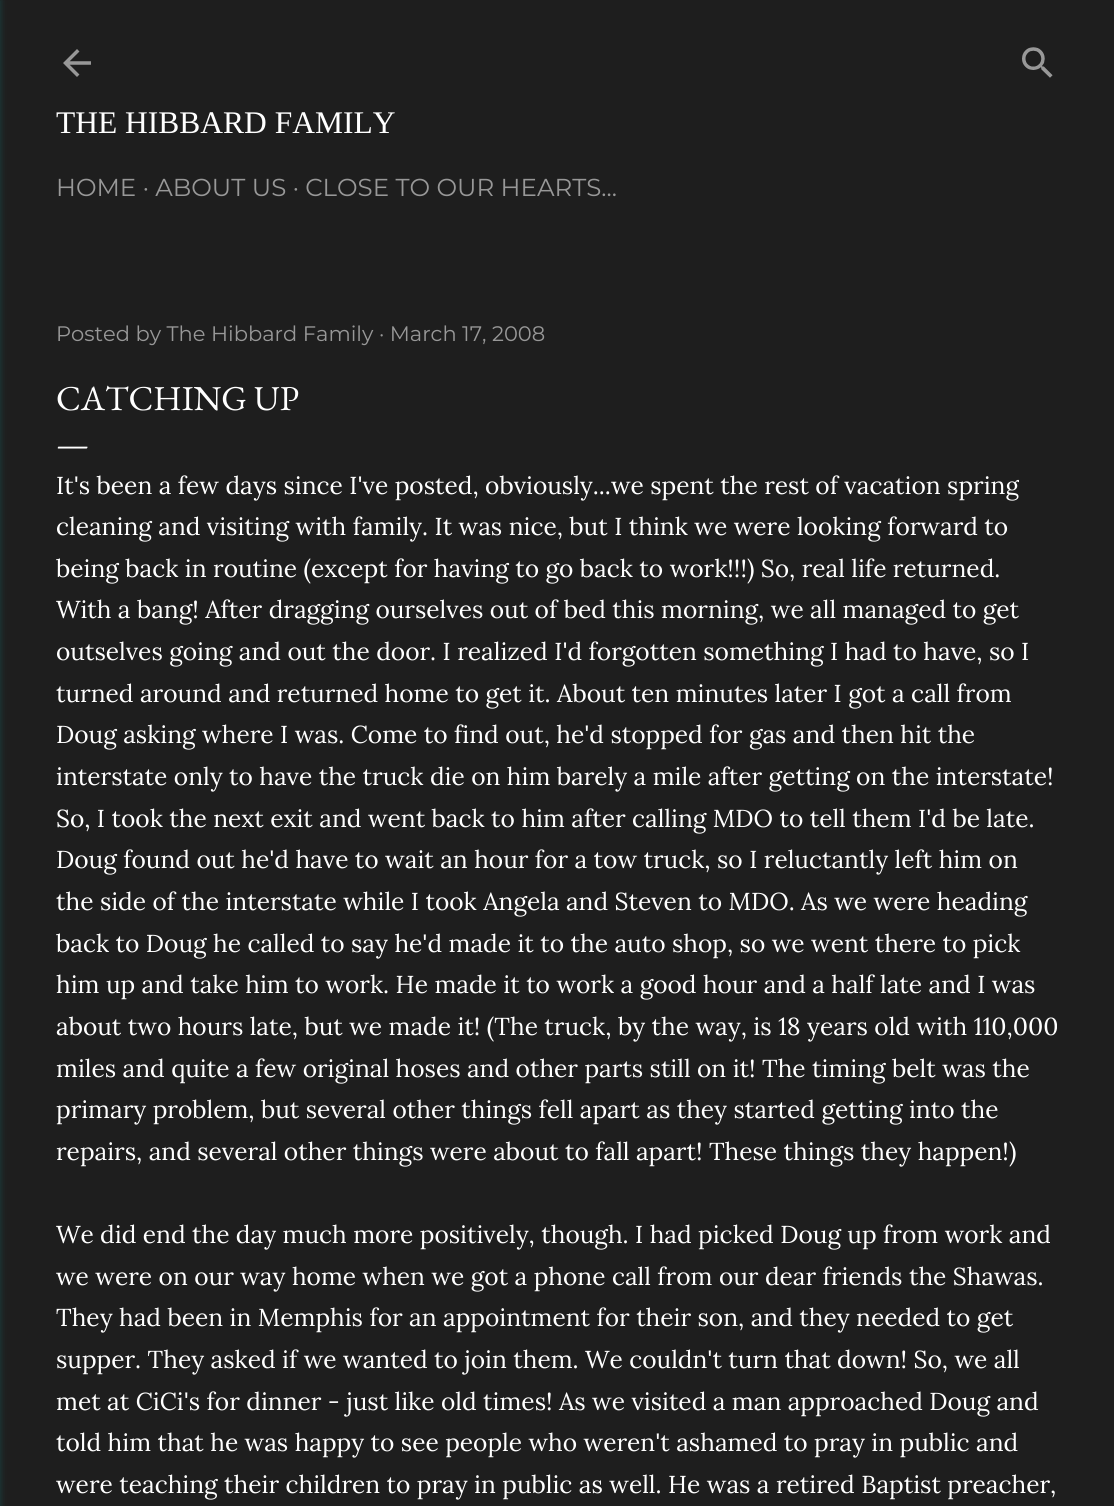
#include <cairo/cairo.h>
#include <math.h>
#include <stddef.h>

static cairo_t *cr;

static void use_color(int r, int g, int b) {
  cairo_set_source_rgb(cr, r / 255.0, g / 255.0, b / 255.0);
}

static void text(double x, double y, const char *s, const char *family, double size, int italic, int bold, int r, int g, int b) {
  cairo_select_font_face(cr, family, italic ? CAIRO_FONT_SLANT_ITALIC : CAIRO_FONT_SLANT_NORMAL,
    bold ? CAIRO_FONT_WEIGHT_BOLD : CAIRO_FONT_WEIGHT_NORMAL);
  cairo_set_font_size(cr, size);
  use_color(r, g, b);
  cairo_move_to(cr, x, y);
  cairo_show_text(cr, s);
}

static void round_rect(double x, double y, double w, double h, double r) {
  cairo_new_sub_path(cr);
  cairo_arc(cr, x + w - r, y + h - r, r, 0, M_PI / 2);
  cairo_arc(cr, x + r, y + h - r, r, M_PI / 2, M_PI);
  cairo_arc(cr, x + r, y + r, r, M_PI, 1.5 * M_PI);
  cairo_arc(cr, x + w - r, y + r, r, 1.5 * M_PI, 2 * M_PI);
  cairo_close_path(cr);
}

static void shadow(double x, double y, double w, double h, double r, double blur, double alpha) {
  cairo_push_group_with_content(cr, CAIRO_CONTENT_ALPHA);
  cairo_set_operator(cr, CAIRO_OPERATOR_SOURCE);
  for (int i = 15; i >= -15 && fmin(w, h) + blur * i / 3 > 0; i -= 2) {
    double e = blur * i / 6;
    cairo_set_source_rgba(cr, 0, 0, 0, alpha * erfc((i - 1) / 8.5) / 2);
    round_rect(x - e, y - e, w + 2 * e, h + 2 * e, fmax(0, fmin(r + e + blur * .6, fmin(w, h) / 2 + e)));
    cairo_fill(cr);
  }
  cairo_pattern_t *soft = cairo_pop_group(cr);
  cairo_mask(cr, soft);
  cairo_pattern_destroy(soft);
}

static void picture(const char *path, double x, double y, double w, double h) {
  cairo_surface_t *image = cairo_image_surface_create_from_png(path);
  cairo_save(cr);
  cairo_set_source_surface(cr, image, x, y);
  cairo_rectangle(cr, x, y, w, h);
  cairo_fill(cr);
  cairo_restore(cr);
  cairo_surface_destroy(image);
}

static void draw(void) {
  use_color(30, 30, 30);
  cairo_paint(cr);
  use_color(0, 255, 255);
  shadow(-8, 0, 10, 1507, 0, 2.5, 0.1);
  picture("img_01.png", 63, 49, 28, 28);
  picture("img_02.png", 1022, 47, 31, 31);
  text(56, 133, "THE HIBBARD FAMILY", "Liberation Serif", 31.5, 0, 0, 255, 255, 255);
  text(56, 196, "HOME · ABOUT US · CLOSE TO OUR HEARTS...", "Montserrat", 24.5, 0, 0, 152, 152, 152);
  text(56, 341, "Posted by The Hibbard Family · March 17, 2008", "Montserrat", 21, 0, 0, 152, 152, 152);
  text(56, 410, "CATCHING UP", "EB Garamond", 35, 0, 0, 255, 255, 255);
  text(56, 455, "—", "EB Garamond", 35, 0, 0, 255, 255, 255);
  text(56, 494, "It's been a few days since I've posted, obviously...we spent the rest of vacation spring", "Lora", 24.5, 0, 0, 255, 255, 255);
  text(56, 535, "cleaning and visiting with family. It was nice, but I think we were looking forward to", "Lora", 24.5, 0, 0, 255, 255, 255);
  text(56, 577, "being back in routine (except for having to go back to work!!!) So, real life returned.", "Lora", 24.5, 0, 0, 255, 255, 255);
  text(56, 618, "With a bang! After dragging ourselves out of bed this morning, we all managed to get", "Lora", 24.5, 0, 0, 255, 255, 255);
  text(56, 660, "outselves going and out the door. I realized I'd forgotten something I had to have, so I", "Lora", 24.5, 0, 0, 255, 255, 255);
  text(56, 702, "turned around and returned home to get it. About ten minutes later I got a call from", "Lora", 24.5, 0, 0, 255, 255, 255);
  text(56, 743, "Doug asking where I was. Come to find out, he'd stopped for gas and then hit the", "Lora", 24.5, 0, 0, 255, 255, 255);
  text(56, 785, "interstate only to have the truck die on him barely a mile after getting on the interstate!", "Lora", 24.5, 0, 0, 255, 255, 255);
  text(56, 827, "So, I took the next exit and went back to him after calling MDO to tell them I'd be late.", "Lora", 24.5, 0, 0, 255, 255, 255);
  text(56, 868, "Doug found out he'd have to wait an hour for a tow truck, so I reluctantly left him on", "Lora", 24.5, 0, 0, 255, 255, 255);
  text(56, 910, "the side of the interstate while I took Angela and Steven to MDO. As we were heading", "Lora", 24.5, 0, 0, 255, 255, 255);
  text(56, 952, "back to Doug he called to say he'd made it to the auto shop, so we went there to pick", "Lora", 24.5, 0, 0, 255, 255, 255);
  text(56, 993, "him up and take him to work. He made it to work a good hour and a half late and I was", "Lora", 24.5, 0, 0, 255, 255, 255);
  text(56, 1035, "about two hours late, but we made it! (The truck, by the way, is 18 years old with 110,000", "Lora", 24.5, 0, 0, 255, 255, 255);
  text(56, 1077, "miles and quite a few original hoses and other parts still on it! The timing belt was the", "Lora", 24.5, 0, 0, 255, 255, 255);
  text(56, 1118, "primary problem, but several other things fell apart as they started getting into the", "Lora", 24.5, 0, 0, 255, 255, 255);
  text(56, 1160, "repairs, and several other things were about to fall apart! These things they happen!)", "Lora", 24.5, 0, 0, 255, 255, 255);
  text(56, 1243, "We did end the day much more positively, though. I had picked Doug up from work and", "Lora", 24.5, 0, 0, 255, 255, 255);
  text(56, 1285, "we were on our way home when we got a phone call from our dear friends the Shawas.", "Lora", 24.5, 0, 0, 255, 255, 255);
  text(56, 1326, "They had been in Memphis for an appointment for their son, and they needed to get", "Lora", 24.5, 0, 0, 255, 255, 255);
  text(56, 1368, "supper. They asked if we wanted to join them. We couldn't turn that down! So, we all", "Lora", 24.5, 0, 0, 255, 255, 255);
  text(56, 1410, "met at CiCi's for dinner - just like old times! As we visited a man approached Doug and", "Lora", 24.5, 0, 0, 255, 255, 255);
  text(56, 1451, "told him that he was happy to see people who weren't ashamed to pray in public and", "Lora", 24.5, 0, 0, 255, 255, 255);
  text(56, 1493, "were teaching their children to pray in public as well. He was a retired Baptist preacher,", "Lora", 24.5, 0, 0, 255, 255, 255);
}

int main(void) {
  cairo_surface_t *surface = cairo_image_surface_create(CAIRO_FORMAT_RGB24, 1114, 1506);
  cr = cairo_create(surface);
  cairo_font_options_t *options = cairo_font_options_create();
  cairo_font_options_set_hint_metrics(options, CAIRO_HINT_METRICS_OFF);
  cairo_font_options_set_hint_style(options, CAIRO_HINT_STYLE_NONE);
  cairo_set_font_options(cr, options);
  cairo_set_miter_limit(cr, 4);
  draw();
  cairo_surface_write_to_png(surface, "out.png");
  cairo_font_options_destroy(options);
  cairo_destroy(cr);
  cairo_surface_destroy(surface);
  return 0;
}
